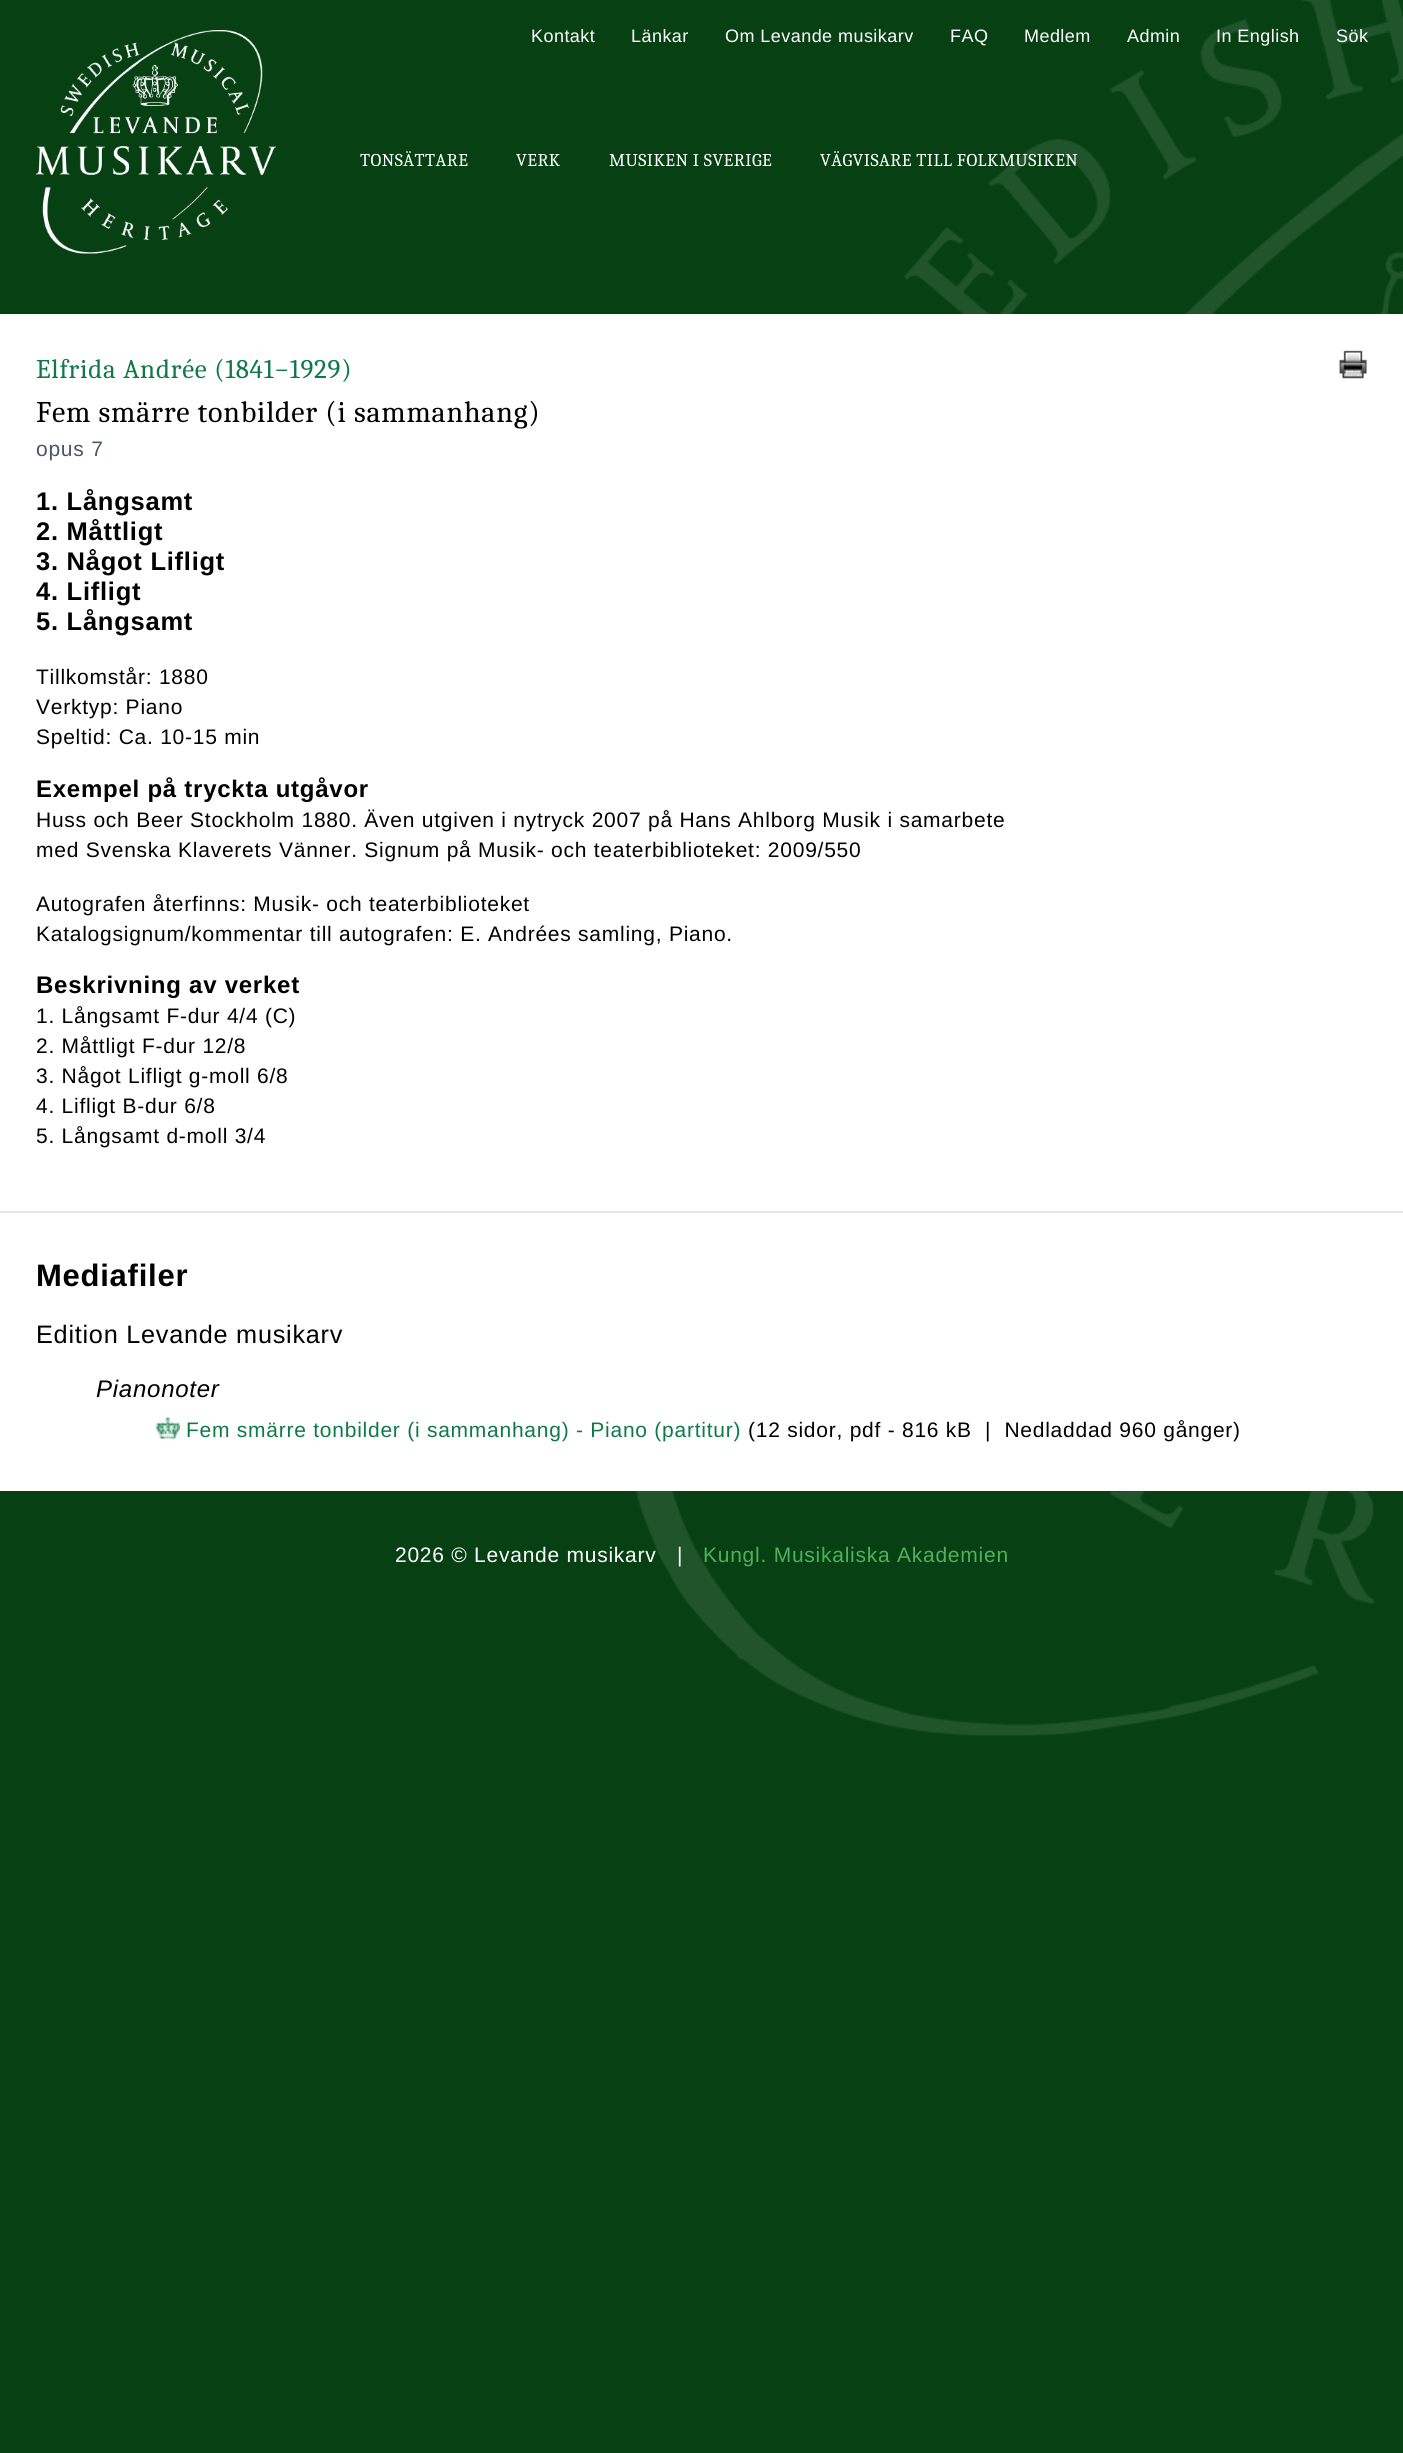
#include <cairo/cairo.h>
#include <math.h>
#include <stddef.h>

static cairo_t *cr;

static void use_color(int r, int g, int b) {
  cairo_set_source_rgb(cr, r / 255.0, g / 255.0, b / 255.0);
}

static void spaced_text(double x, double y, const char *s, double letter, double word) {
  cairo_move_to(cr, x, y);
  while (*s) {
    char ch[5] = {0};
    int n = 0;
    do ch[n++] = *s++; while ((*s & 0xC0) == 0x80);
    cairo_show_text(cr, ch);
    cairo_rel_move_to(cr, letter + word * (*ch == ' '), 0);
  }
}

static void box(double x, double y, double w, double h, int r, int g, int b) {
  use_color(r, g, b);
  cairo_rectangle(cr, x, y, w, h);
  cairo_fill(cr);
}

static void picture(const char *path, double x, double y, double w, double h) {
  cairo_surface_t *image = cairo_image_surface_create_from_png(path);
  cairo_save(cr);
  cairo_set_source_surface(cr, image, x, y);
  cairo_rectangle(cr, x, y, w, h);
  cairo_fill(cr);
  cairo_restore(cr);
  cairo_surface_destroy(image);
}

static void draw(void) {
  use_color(7, 65, 19);
  cairo_paint(cr);
  picture("img_01.png", 636, 0, 767, 1736);
  picture("img_02.png", 36, 30, 240, 224);
  box(0, 314, 1403, 1177, 255, 255, 255);
  picture("img_03.png", 1339, 350, 28, 29);
  box(0, 1211, 1403, 2, 229, 231, 235);
  picture("img_04.png", 156, 1417, 24, 22);
  cairo_select_font_face(cr, "Liberation Sans", CAIRO_FONT_SLANT_NORMAL, CAIRO_FONT_WEIGHT_NORMAL);
  cairo_set_font_size(cr, 18);
  use_color(255, 255, 255);
  spaced_text(531, 42, "Kontakt", 0.45, 0);
  spaced_text(631, 42, "Länkar", 0.45, 0);
  spaced_text(725, 42, "Om Levande musikarv", 0.45, 0);
  spaced_text(950, 42, "FAQ", 0.45, 0);
  spaced_text(1024, 42, "Medlem", 0.45, 0);
  spaced_text(1127, 42, "Admin", 0.45, 0);
  spaced_text(1216, 42, "In English", 0.45, 0);
  spaced_text(1336, 42, "Sök", 0.45, 0);
  cairo_select_font_face(cr, "Caladea", CAIRO_FONT_SLANT_NORMAL, CAIRO_FONT_WEIGHT_NORMAL);
  spaced_text(360, 166, "TONSÄTTARE", 0.45, 0);
  spaced_text(516, 166, "VERK", 0.45, 0);
  spaced_text(609, 166, "MUSIKEN I SVERIGE", 0.45, 0);
  spaced_text(820, 166, "VÄGVISARE TILL FOLKMUSIKEN", 0.45, 0);
  cairo_set_font_size(cr, 27);
  use_color(16, 121, 72);
  spaced_text(36, 378, "Elfrida Andrée (1841−1929)", 0.75, 0);
  cairo_set_font_size(cr, 30);
  use_color(0, 0, 0);
  spaced_text(36, 422, "Fem smärre tonbilder (i sammanhang)", 0.75, 0);
  cairo_select_font_face(cr, "Liberation Sans", CAIRO_FONT_SLANT_NORMAL, CAIRO_FONT_WEIGHT_NORMAL);
  cairo_set_font_size(cr, 21);
  use_color(75, 85, 99);
  spaced_text(36, 456, "opus 7", 0.75, 0);
  cairo_select_font_face(cr, "Liberation Sans", CAIRO_FONT_SLANT_NORMAL, CAIRO_FONT_WEIGHT_BOLD);
  cairo_set_font_size(cr, 25.5);
  use_color(0, 0, 0);
  spaced_text(36, 510, "1. Långsamt", 0.75, 0);
  spaced_text(36, 540, "2. Måttligt", 0.75, 0);
  spaced_text(36, 570, "3. Något Lifligt", 0.75, 0);
  spaced_text(36, 600, "4. Lifligt", 0.75, 0);
  spaced_text(36, 630, "5. Långsamt", 0.75, 0);
  cairo_select_font_face(cr, "Liberation Sans", CAIRO_FONT_SLANT_NORMAL, CAIRO_FONT_WEIGHT_NORMAL);
  cairo_set_font_size(cr, 21);
  spaced_text(36, 684, "Tillkomstår: 1880", 0.75, 0);
  spaced_text(36, 714, "Verktyp: Piano", 0.75, 0);
  spaced_text(36, 744, "Speltid: Ca. 10-15 min", 0.75, 0);
  cairo_select_font_face(cr, "Liberation Sans", CAIRO_FONT_SLANT_NORMAL, CAIRO_FONT_WEIGHT_BOLD);
  cairo_set_font_size(cr, 24);
  spaced_text(36, 797, "Exempel på tryckta utgåvor", 0.75, 0);
  cairo_select_font_face(cr, "Liberation Sans", CAIRO_FONT_SLANT_NORMAL, CAIRO_FONT_WEIGHT_NORMAL);
  cairo_set_font_size(cr, 21);
  spaced_text(36, 827, "Huss och Beer Stockholm 1880. Även utgiven i nytryck 2007 på Hans Ahlborg Musik i samarbete", 0.75, 0);
  spaced_text(36, 857, "med Svenska Klaverets Vänner. Signum på Musik- och teaterbiblioteket: 2009/550", 0.75, 0);
  spaced_text(36, 911, "Autografen återfinns: Musik- och teaterbiblioteket", 0.75, 0);
  spaced_text(36, 941, "Katalogsignum/kommentar till autografen: E. Andrées samling, Piano.", 0.75, 0);
  cairo_select_font_face(cr, "Liberation Sans", CAIRO_FONT_SLANT_NORMAL, CAIRO_FONT_WEIGHT_BOLD);
  cairo_set_font_size(cr, 24);
  spaced_text(36, 993, "Beskrivning av verket", 0.75, 0);
  cairo_select_font_face(cr, "Liberation Sans", CAIRO_FONT_SLANT_NORMAL, CAIRO_FONT_WEIGHT_NORMAL);
  cairo_set_font_size(cr, 21);
  spaced_text(36, 1023, "1. Långsamt F-dur 4/4 (C)", 0.75, 0);
  spaced_text(36, 1053, "2. Måttligt F-dur 12/8", 0.75, 0);
  spaced_text(36, 1083, "3. Något Lifligt g-moll 6/8", 0.75, 0);
  spaced_text(36, 1113, "4. Lifligt B-dur 6/8", 0.75, 0);
  spaced_text(36, 1143, "5. Långsamt d-moll 3/4", 0.75, 0);
  cairo_select_font_face(cr, "Liberation Sans", CAIRO_FONT_SLANT_NORMAL, CAIRO_FONT_WEIGHT_BOLD);
  cairo_set_font_size(cr, 31);
  spaced_text(36, 1286, "Mediafiler", 0.75, 0);
  cairo_select_font_face(cr, "Liberation Sans", CAIRO_FONT_SLANT_NORMAL, CAIRO_FONT_WEIGHT_NORMAL);
  cairo_set_font_size(cr, 25.25);
  spaced_text(36, 1343, "Edition Levande musikarv", 0.75, 0);
  cairo_select_font_face(cr, "Liberation Sans", CAIRO_FONT_SLANT_ITALIC, CAIRO_FONT_WEIGHT_NORMAL);
  cairo_set_font_size(cr, 24);
  spaced_text(96, 1397, "Pianonoter", 0.75, 0);
  cairo_select_font_face(cr, "Liberation Sans", CAIRO_FONT_SLANT_NORMAL, CAIRO_FONT_WEIGHT_NORMAL);
  cairo_set_font_size(cr, 21);
  use_color(16, 121, 72);
  spaced_text(186, 1437, "Fem smärre tonbilder (i sammanhang) - Piano (partitur)", 0.75, 0);
  use_color(0, 0, 0);
  spaced_text(748, 1437, "(12 sidor, pdf - 816 kB  |  Nedladdad 960 gånger)", 0.75, 0);
  use_color(255, 255, 255);
  spaced_text(395, 1562, "2026 © Levande musikarv", 0.75, 0);
  spaced_text(677, 1562, "|", 0.75, 0);
  use_color(80, 176, 91);
  spaced_text(703, 1562, "Kungl. Musikaliska Akademien", 0.75, 0);
}

int main(void) {
  cairo_surface_t *surface = cairo_image_surface_create(CAIRO_FORMAT_RGB24, 1403, 2453);
  cr = cairo_create(surface);
  cairo_font_options_t *options = cairo_font_options_create();
  cairo_font_options_set_hint_metrics(options, CAIRO_HINT_METRICS_OFF);
  cairo_font_options_set_hint_style(options, CAIRO_HINT_STYLE_NONE);
  cairo_set_font_options(cr, options);
  cairo_set_miter_limit(cr, 4);
  draw();
  cairo_surface_write_to_png(surface, "out.png");
  cairo_font_options_destroy(options);
  cairo_destroy(cr);
  cairo_surface_destroy(surface);
  return 0;
}
